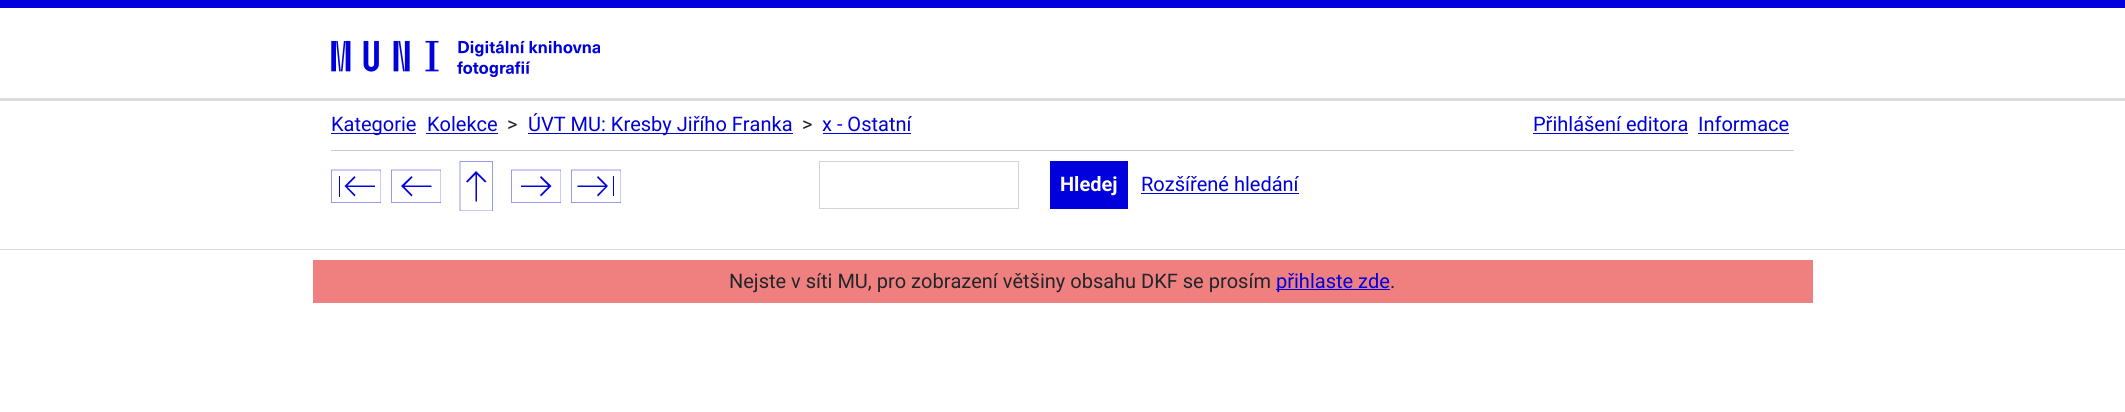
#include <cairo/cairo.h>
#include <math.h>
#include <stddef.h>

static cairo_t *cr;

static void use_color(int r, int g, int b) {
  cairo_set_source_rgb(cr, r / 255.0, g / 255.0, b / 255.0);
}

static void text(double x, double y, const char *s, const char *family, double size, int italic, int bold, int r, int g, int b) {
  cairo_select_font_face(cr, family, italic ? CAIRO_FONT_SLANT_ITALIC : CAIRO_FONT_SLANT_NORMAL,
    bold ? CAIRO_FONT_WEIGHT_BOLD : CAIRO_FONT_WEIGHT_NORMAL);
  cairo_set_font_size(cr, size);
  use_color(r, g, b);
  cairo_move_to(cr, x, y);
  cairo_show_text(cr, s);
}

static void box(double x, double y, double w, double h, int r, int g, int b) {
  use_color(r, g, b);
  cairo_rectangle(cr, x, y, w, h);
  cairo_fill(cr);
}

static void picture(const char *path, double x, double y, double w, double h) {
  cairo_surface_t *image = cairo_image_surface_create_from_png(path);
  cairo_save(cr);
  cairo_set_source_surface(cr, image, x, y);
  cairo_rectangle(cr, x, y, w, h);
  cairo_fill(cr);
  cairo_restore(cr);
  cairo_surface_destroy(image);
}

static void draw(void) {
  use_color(255, 255, 255);
  cairo_paint(cr);
  box(0, 0, 2125, 8, 0, 0, 220);
  picture("img_01.png", 331, 40, 269, 37);
  box(0, 98, 2125, 3, 220, 220, 220);
  box(331, 133, 85, 1, 0, 0, 220);
  box(426, 133, 72, 1, 0, 0, 220);
  box(528, 133, 265, 1, 0, 0, 220);
  box(823, 133, 88, 1, 0, 0, 220);
  box(1533, 133, 155, 1, 0, 0, 220);
  box(1698, 133, 91, 1, 0, 0, 220);
  box(331, 150, 1463, 1, 204, 204, 204);
  box(339, 176, 1, 21, 0, 0, 220);
  cairo_new_path(cr);
  cairo_move_to(cr, 347.5, 185.5);
  cairo_line_to(cr, 355.5, 177.5);
  cairo_line_to(cr, 354.5, 176);
  cairo_line_to(cr, 344.5, 186);
  cairo_line_to(cr, 354.5, 196.5);
  cairo_line_to(cr, 355.5, 195);
  cairo_line_to(cr, 347.5, 187);
  cairo_line_to(cr, 375, 187);
  cairo_line_to(cr, 375, 185.5);
  cairo_close_path(cr);
  cairo_fill(cr);
  cairo_save(cr);
  cairo_rectangle(cr, 331, 161, 50, 50);
  cairo_clip(cr);
  cairo_new_path(cr);
  cairo_move_to(cr, 381, 202.5);
  cairo_line_to(cr, 331.5, 202.5);
  cairo_line_to(cr, 331.5, 170);
  cairo_line_to(cr, 381, 170);
  cairo_close_path(cr);
  cairo_set_line_width(cr, 0.4);
  cairo_stroke(cr);
  cairo_restore(cr);
  cairo_new_path(cr);
  cairo_move_to(cr, 404.5, 185.5);
  cairo_line_to(cr, 412.5, 177.5);
  cairo_line_to(cr, 411.5, 176);
  cairo_line_to(cr, 401, 186);
  cairo_line_to(cr, 411.5, 196.5);
  cairo_line_to(cr, 412.5, 195);
  cairo_line_to(cr, 404.5, 187);
  cairo_line_to(cr, 431.5, 187);
  cairo_line_to(cr, 431.5, 185.5);
  cairo_close_path(cr);
  cairo_fill(cr);
  cairo_save(cr);
  cairo_rectangle(cr, 391, 161, 50, 50);
  cairo_clip(cr);
  cairo_new_path(cr);
  cairo_move_to(cr, 441, 202.5);
  cairo_line_to(cr, 391.5, 202.5);
  cairo_line_to(cr, 391.5, 170);
  cairo_line_to(cr, 441, 170);
  cairo_close_path(cr);
  cairo_set_line_width(cr, 0.4);
  cairo_stroke(cr);
  cairo_restore(cr);
  cairo_new_path(cr);
  cairo_move_to(cr, 475.5, 174.5);
  cairo_line_to(cr, 467.5, 182.5);
  cairo_line_to(cr, 466, 181.5);
  cairo_line_to(cr, 476, 171);
  cairo_line_to(cr, 486.5, 181.5);
  cairo_line_to(cr, 485, 182.5);
  cairo_line_to(cr, 477, 174.5);
  cairo_line_to(cr, 477, 201.5);
  cairo_line_to(cr, 475.5, 201.5);
  cairo_close_path(cr);
  cairo_fill(cr);
  cairo_save(cr);
  cairo_rectangle(cr, 451, 161, 50, 50);
  cairo_clip(cr);
  cairo_new_path(cr);
  cairo_move_to(cr, 460, 211);
  cairo_line_to(cr, 460, 161.5);
  cairo_line_to(cr, 492.5, 161.5);
  cairo_line_to(cr, 492.5, 211);
  cairo_close_path(cr);
  cairo_set_line_width(cr, 0.4);
  cairo_stroke(cr);
  cairo_restore(cr);
  cairo_new_path(cr);
  cairo_move_to(cr, 548, 185.5);
  cairo_line_to(cr, 540, 177.5);
  cairo_line_to(cr, 541, 176);
  cairo_line_to(cr, 551.5, 186);
  cairo_line_to(cr, 541, 196.5);
  cairo_line_to(cr, 540, 195);
  cairo_line_to(cr, 548, 187);
  cairo_line_to(cr, 521, 187);
  cairo_line_to(cr, 521, 185.5);
  cairo_close_path(cr);
  cairo_fill(cr);
  cairo_save(cr);
  cairo_rectangle(cr, 511, 161, 50, 50);
  cairo_clip(cr);
  cairo_new_path(cr);
  cairo_move_to(cr, 511.5, 170);
  cairo_line_to(cr, 561, 170);
  cairo_line_to(cr, 561, 202.5);
  cairo_line_to(cr, 511.5, 202.5);
  cairo_close_path(cr);
  cairo_set_line_width(cr, 0.4);
  cairo_stroke(cr);
  cairo_restore(cr);
  cairo_new_path(cr);
  cairo_move_to(cr, 605, 185.5);
  cairo_line_to(cr, 597, 177.5);
  cairo_line_to(cr, 598, 176);
  cairo_line_to(cr, 608, 186);
  cairo_line_to(cr, 598, 196.5);
  cairo_line_to(cr, 597, 195);
  cairo_line_to(cr, 605, 187);
  cairo_line_to(cr, 577.5, 187);
  cairo_line_to(cr, 577.5, 185.5);
  cairo_close_path(cr);
  cairo_fill(cr);
  box(613, 176, 1, 20, 0, 0, 220);
  cairo_save(cr);
  cairo_rectangle(cr, 571, 161, 50, 50);
  cairo_clip(cr);
  cairo_new_path(cr);
  cairo_move_to(cr, 571.5, 170);
  cairo_line_to(cr, 621, 170);
  cairo_line_to(cr, 621, 202.5);
  cairo_line_to(cr, 571.5, 202.5);
  cairo_close_path(cr);
  cairo_set_line_width(cr, 0.4);
  cairo_stroke(cr);
  cairo_restore(cr);
  cairo_rectangle(cr, 819.5, 161.5, 199, 47);
  use_color(206, 212, 218);
  cairo_set_line_width(cr, 1);
  cairo_stroke(cr);
  box(1050, 161, 78, 48, 0, 0, 220);
  box(1141, 193, 158, 1, 0, 0, 220);
  box(0, 249, 2125, 1, 220, 220, 220);
  box(313, 260, 1500, 43, 240, 128, 128);
  box(1276, 289, 114, 1, 0, 0, 220);
  text(331, 131, "Kategorie", "Roboto", 20, 0, 0, 0, 0, 220);
  text(427, 131, "Kolekce", "Roboto", 20, 0, 0, 0, 0, 220);
  text(507, 131, ">", "Roboto", 20, 0, 0, 33, 37, 41);
  text(528, 131, "ÚVT MU: Kresby Jiřího Franka", "Roboto", 20, 0, 0, 0, 0, 220);
  text(802, 131, ">", "Roboto", 20, 0, 0, 33, 37, 41);
  text(822, 131, "x - Ostatní", "Roboto", 20, 0, 0, 0, 0, 220);
  text(1533, 131, "Přihlášení editora", "Roboto", 20, 0, 0, 0, 0, 220);
  text(1698, 131, "Informace", "Roboto", 20, 0, 0, 0, 0, 220);
  text(1060, 191, "Hledej", "Roboto", 20, 0, 1, 255, 255, 255);
  text(1141, 191, "Rozšířené hledání", "Roboto", 20, 0, 0, 0, 0, 220);
  text(729, 288, "Nejste v síti MU, pro zobrazení většiny obsahu DKF se prosím", "Roboto", 20, 0, 0, 33, 37, 41);
  text(1276, 288, "přihlaste zde", "Roboto", 20, 0, 0, 0, 0, 220);
  text(1390, 288, ".", "Roboto", 20, 0, 0, 33, 37, 41);
}

int main(void) {
  cairo_surface_t *surface = cairo_image_surface_create(CAIRO_FORMAT_RGB24, 2125, 412);
  cr = cairo_create(surface);
  cairo_font_options_t *options = cairo_font_options_create();
  cairo_font_options_set_hint_metrics(options, CAIRO_HINT_METRICS_OFF);
  cairo_font_options_set_hint_style(options, CAIRO_HINT_STYLE_NONE);
  cairo_set_font_options(cr, options);
  cairo_set_miter_limit(cr, 4);
  draw();
  cairo_surface_write_to_png(surface, "out.png");
  cairo_font_options_destroy(options);
  cairo_destroy(cr);
  cairo_surface_destroy(surface);
  return 0;
}
